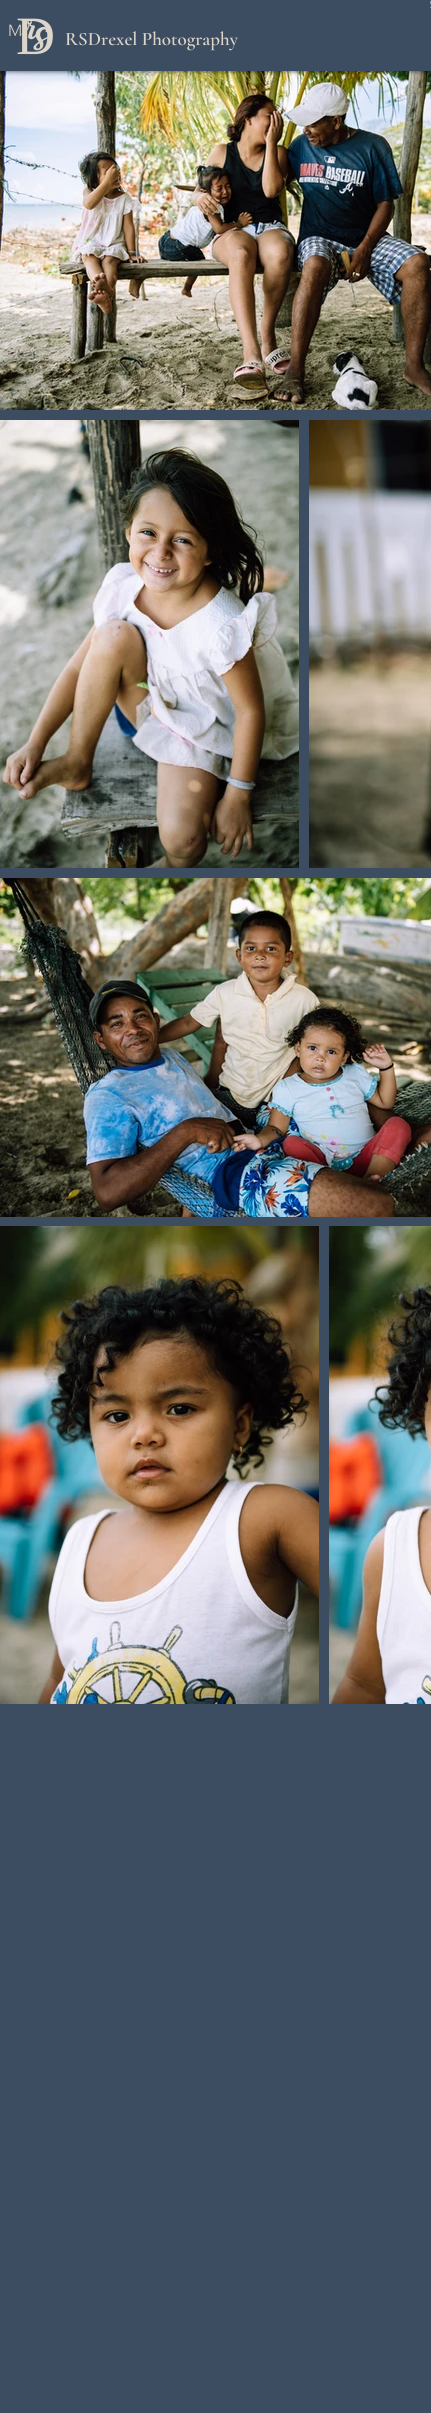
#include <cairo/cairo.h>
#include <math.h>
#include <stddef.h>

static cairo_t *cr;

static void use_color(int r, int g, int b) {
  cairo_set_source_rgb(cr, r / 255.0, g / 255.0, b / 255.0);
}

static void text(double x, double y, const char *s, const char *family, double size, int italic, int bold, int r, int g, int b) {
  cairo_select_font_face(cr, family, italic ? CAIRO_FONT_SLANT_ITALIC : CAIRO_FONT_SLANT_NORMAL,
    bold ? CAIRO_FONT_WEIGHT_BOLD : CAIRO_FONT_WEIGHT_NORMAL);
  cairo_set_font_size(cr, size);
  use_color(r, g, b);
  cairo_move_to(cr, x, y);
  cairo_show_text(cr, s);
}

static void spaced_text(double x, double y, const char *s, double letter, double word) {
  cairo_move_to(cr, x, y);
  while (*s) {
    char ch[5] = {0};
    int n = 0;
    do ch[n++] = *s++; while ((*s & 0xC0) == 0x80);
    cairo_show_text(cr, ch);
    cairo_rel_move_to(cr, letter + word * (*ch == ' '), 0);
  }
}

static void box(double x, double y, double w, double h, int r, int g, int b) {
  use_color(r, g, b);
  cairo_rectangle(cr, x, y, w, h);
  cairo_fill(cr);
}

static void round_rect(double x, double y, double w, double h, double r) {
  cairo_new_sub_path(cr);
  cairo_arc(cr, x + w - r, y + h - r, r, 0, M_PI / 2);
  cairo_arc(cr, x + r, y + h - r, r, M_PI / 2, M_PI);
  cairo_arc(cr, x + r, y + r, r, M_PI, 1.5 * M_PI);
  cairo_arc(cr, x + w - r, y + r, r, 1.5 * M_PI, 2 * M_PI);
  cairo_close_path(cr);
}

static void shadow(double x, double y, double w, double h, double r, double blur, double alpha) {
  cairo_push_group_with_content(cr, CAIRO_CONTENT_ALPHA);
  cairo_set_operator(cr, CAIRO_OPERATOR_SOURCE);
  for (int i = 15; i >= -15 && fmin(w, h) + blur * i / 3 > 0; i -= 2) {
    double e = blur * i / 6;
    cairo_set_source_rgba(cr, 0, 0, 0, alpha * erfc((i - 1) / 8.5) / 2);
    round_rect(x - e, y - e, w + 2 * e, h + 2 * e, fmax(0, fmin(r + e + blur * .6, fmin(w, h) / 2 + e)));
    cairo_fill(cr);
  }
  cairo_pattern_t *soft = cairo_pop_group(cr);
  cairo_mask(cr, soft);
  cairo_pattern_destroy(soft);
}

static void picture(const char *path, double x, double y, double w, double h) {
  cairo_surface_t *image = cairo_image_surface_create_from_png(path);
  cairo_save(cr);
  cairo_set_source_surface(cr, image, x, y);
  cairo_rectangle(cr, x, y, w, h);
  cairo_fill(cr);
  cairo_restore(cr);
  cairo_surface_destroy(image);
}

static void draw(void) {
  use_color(60, 77, 97);
  cairo_paint(cr);
  picture("img_02.png", 0, 71, 431, 339);
  cairo_save(cr);
  cairo_rectangle(cr, 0, 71, 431, 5);
  cairo_clip(cr);
  use_color(0, 0, 0);
  shadow(0, 0, 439, 71, 0, 2.5, 0.7);
  cairo_restore(cr);
  box(430, 1, 1, 3, 140, 145, 150);
  box(430, 7, 1, 1, 140, 145, 150);
  picture("img_03.png", 0, 420, 299, 448);
  picture("img_04.png", 309, 420, 122, 448);
  picture("img_05.png", 0, 878, 431, 339);
  picture("img_06.png", 0, 1226, 319, 478);
  picture("img_07.png", 329, 1226, 102, 478);
  cairo_select_font_face(cr, "Liberation Serif", CAIRO_FONT_SLANT_NORMAL, CAIRO_FONT_WEIGHT_NORMAL);
  cairo_set_font_size(cr, 54);
  use_color(220, 213, 202);
  spaced_text(16, 54, "D", 7, 0);
  text(8, 36, "M", "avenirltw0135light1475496 Light", 16, 0, 0, 220, 213, 202);
  cairo_select_font_face(cr, "Cookie", CAIRO_FONT_SLANT_NORMAL, CAIRO_FONT_WEIGHT_NORMAL);
  cairo_set_font_size(cr, 63);
  cairo_save(cr);
  cairo_translate(cr, 33, 49);
  cairo_rotate(cr, 10 * M_PI / 180);
  spaced_text(0, 0, "s", 2, 0);
  cairo_restore(cr);
  picture("img_01.png", 21, 21, 15, 19);
  text(65, 45, "RSDrexel Photography", "Cormorant Garamond SemiBold", 19, 0, 0, 220, 213, 202);
}

int main(void) {
  cairo_surface_t *surface = cairo_image_surface_create(CAIRO_FORMAT_RGB24, 431, 2413);
  cr = cairo_create(surface);
  cairo_font_options_t *options = cairo_font_options_create();
  cairo_font_options_set_hint_metrics(options, CAIRO_HINT_METRICS_OFF);
  cairo_font_options_set_hint_style(options, CAIRO_HINT_STYLE_NONE);
  cairo_set_font_options(cr, options);
  cairo_set_miter_limit(cr, 4);
  draw();
  cairo_surface_write_to_png(surface, "out.png");
  cairo_font_options_destroy(options);
  cairo_destroy(cr);
  cairo_surface_destroy(surface);
  return 0;
}
